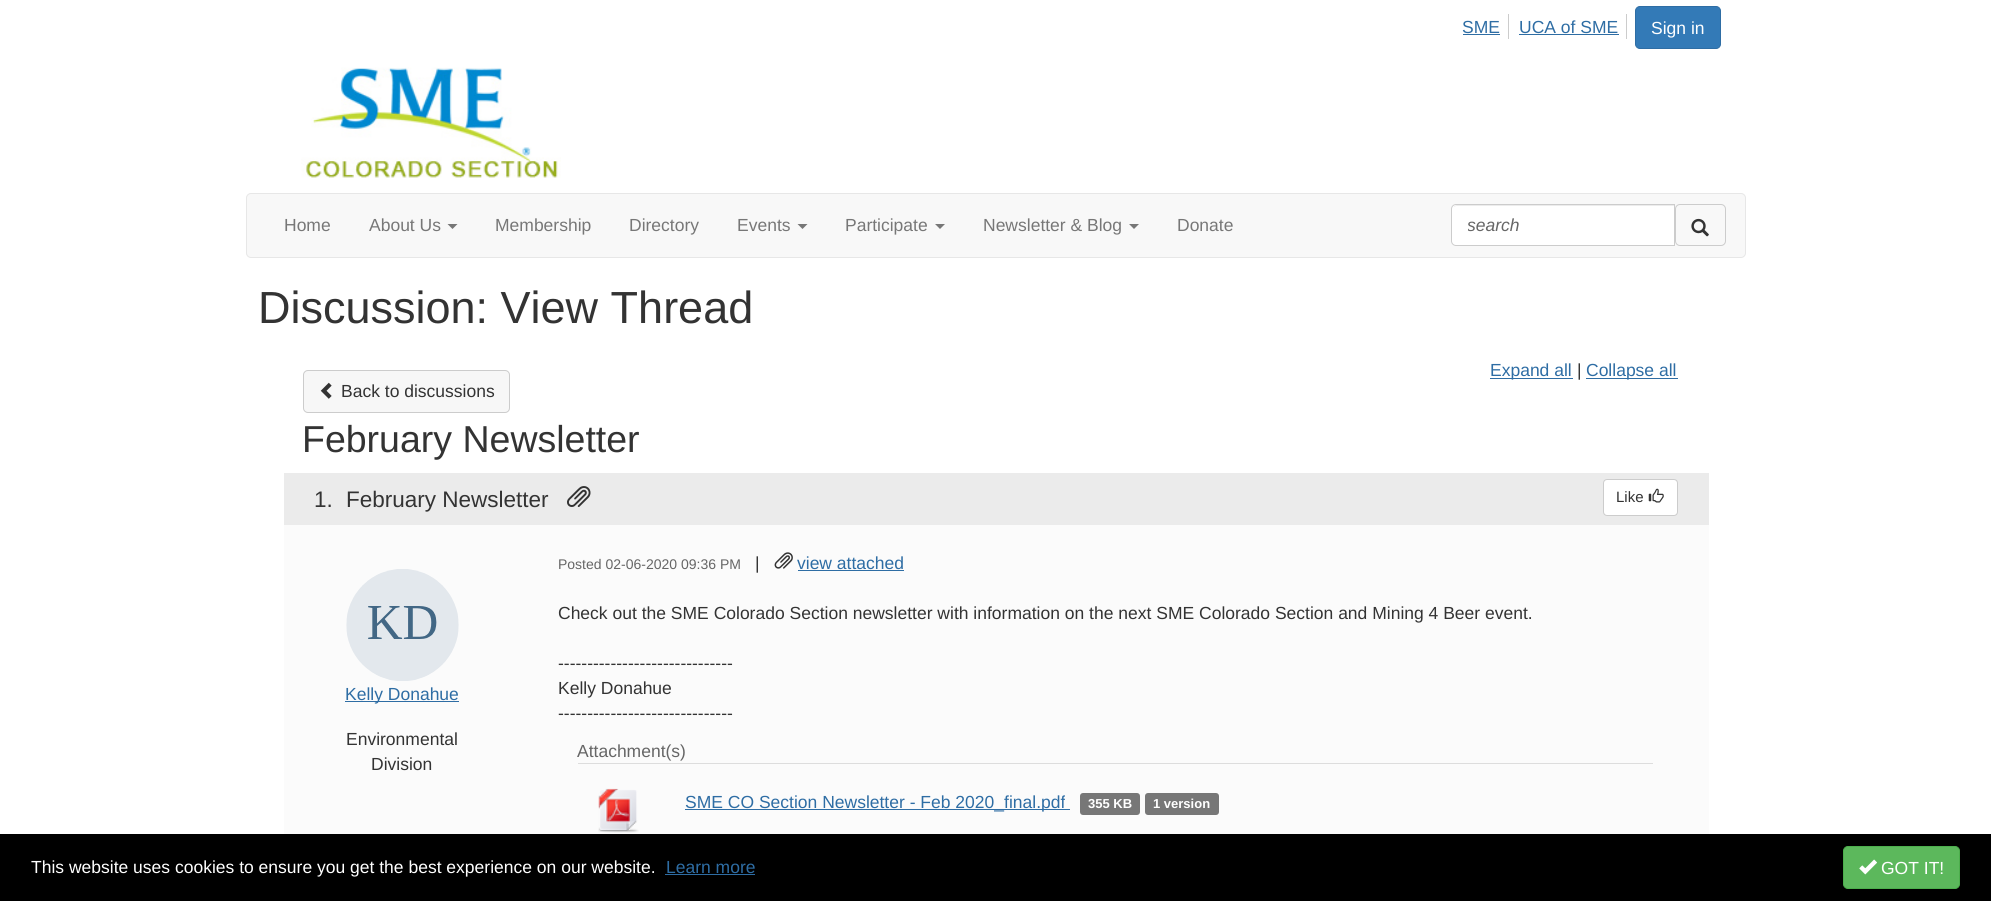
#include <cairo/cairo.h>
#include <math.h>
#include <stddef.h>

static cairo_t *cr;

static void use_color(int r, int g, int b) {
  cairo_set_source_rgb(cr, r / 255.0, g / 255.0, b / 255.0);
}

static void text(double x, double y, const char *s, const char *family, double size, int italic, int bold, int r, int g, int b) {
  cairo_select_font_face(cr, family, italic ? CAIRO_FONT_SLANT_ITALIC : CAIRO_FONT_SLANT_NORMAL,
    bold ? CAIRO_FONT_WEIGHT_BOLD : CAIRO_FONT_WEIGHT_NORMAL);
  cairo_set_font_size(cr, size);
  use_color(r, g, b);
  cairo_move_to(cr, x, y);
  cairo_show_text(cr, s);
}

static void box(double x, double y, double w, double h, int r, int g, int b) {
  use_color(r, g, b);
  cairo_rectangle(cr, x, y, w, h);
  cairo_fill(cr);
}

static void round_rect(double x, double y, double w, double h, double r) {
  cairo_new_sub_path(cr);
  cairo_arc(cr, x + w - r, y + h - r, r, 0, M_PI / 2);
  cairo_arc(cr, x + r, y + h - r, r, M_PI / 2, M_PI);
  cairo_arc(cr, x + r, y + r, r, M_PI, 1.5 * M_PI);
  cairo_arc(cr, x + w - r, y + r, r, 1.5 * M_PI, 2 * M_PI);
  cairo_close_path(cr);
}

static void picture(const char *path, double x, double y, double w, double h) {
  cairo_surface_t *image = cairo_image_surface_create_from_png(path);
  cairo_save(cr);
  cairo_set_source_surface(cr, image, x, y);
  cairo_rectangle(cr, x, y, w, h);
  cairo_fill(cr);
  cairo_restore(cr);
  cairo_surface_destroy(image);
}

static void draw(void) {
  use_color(255, 255, 255);
  cairo_paint(cr);
  box(1508, 14, 1, 25, 204, 204, 204);
  box(1463, 34, 37, 1, 46, 109, 164);
  box(1626, 14, 1, 25, 204, 204, 204);
  box(1519, 34, 100, 1, 46, 109, 164);
  use_color(51, 122, 183);
  round_rect(1635.5, 6.5, 85, 42, 4.5);
  cairo_fill_preserve(cr);
  use_color(46, 109, 164);
  cairo_set_line_width(cr, 1);
  cairo_stroke(cr);
  picture("img_01.png", 301, 67, 260, 111);
  use_color(248, 248, 248);
  round_rect(246.5, 193.5, 1499, 64, 4.5);
  cairo_fill_preserve(cr);
  use_color(231, 231, 231);
  cairo_stroke(cr);
  use_color(119, 119, 119);
  cairo_new_path(cr);
  cairo_move_to(cr, 447.5, 224);
  cairo_line_to(cr, 457.5, 224);
  cairo_line_to(cr, 452.5, 229);
  cairo_close_path(cr);
  cairo_fill(cr);
  cairo_new_path(cr);
  cairo_move_to(cr, 797.5, 224);
  cairo_line_to(cr, 807.5, 224);
  cairo_line_to(cr, 802.5, 229);
  cairo_close_path(cr);
  cairo_fill(cr);
  cairo_new_path(cr);
  cairo_move_to(cr, 935, 224);
  cairo_line_to(cr, 945, 224);
  cairo_line_to(cr, 940, 229);
  cairo_close_path(cr);
  cairo_fill(cr);
  cairo_new_path(cr);
  cairo_move_to(cr, 1129, 224);
  cairo_line_to(cr, 1139, 224);
  cairo_line_to(cr, 1134, 229);
  cairo_close_path(cr);
  cairo_fill(cr);
  use_color(255, 255, 255);
  cairo_new_path(cr);
  cairo_move_to(cr, 1456, 204);
  cairo_line_to(cr, 1675, 204);
  cairo_line_to(cr, 1675, 246);
  cairo_line_to(cr, 1456, 246);
  cairo_curve_to(cr, 1453, 246, 1451, 244, 1451, 241);
  cairo_line_to(cr, 1451, 209);
  cairo_curve_to(cr, 1451, 206, 1453, 204, 1456, 204);
  cairo_close_path(cr);
  cairo_fill(cr);
  use_color(236, 236, 236);
  cairo_new_path(cr);
  cairo_move_to(cr, 1456, 206);
  cairo_line_to(cr, 1674, 206);
  cairo_line_to(cr, 1674, 205);
  cairo_line_to(cr, 1457, 205);
  cairo_curve_to(cr, 1456, 205, 1454, 206, 1454, 207);
  cairo_close_path(cr);
  cairo_fill(cr);
  cairo_new_path(cr);
  cairo_move_to(cr, 1456, 204.5);
  cairo_line_to(cr, 1674.5, 204.5);
  cairo_line_to(cr, 1674.5, 245.5);
  cairo_line_to(cr, 1456, 245.5);
  cairo_curve_to(cr, 1453.5, 245.5, 1451.5, 243.5, 1451.5, 241);
  cairo_line_to(cr, 1451.5, 209);
  cairo_curve_to(cr, 1451.5, 206.5, 1453.5, 204.5, 1456, 204.5);
  cairo_close_path(cr);
  use_color(204, 204, 204);
  cairo_stroke(cr);
  round_rect(1675.5, 204.5, 50, 41, 4.5);
  cairo_stroke(cr);
  picture("img_02.png", 1691, 218, 18, 19);
  box(1490, 378, 83, 1, 46, 109, 164);
  box(1586, 378, 92, 1, 46, 109, 164);
  use_color(247, 247, 247);
  round_rect(303.5, 370.5, 206, 42, 4.5);
  cairo_fill_preserve(cr);
  use_color(204, 204, 204);
  cairo_stroke(cr);
  picture("img_03.png", 320, 382, 12, 17);
  box(284, 525, 1425, 309, 251, 251, 251);
  box(284, 473, 1425, 52, 235, 235, 235);
  picture("img_04.png", 567, 486, 24, 21);
  use_color(255, 255, 255);
  round_rect(1603.5, 479.5, 74, 36, 3.5);
  cairo_fill_preserve(cr);
  use_color(204, 204, 204);
  cairo_stroke(cr);
  picture("img_05.png", 1648, 488, 16, 15);
  picture("img_06.png", 346, 569, 113, 112);
  box(345, 701, 114, 1, 46, 109, 164);
  picture("img_07.png", 774, 552, 19, 17);
  box(798, 570, 106, 1, 46, 109, 164);
  box(578, 763, 1075, 1, 221, 221, 221);
  picture("img_08.png", 598, 788, 41, 45);
  box(685, 809, 385, 1, 46, 109, 164);
  use_color(119, 119, 119);
  round_rect(1080, 793, 60, 22, 3);
  cairo_fill(cr);
  round_rect(1145, 793, 74, 22, 3);
  cairo_fill(cr);
  box(0, 834, 1991, 67, 0, 0, 0);
  box(665, 874, 90, 1, 46, 109, 164);
  use_color(92, 184, 92);
  round_rect(1843.5, 846.5, 116, 42, 4.5);
  cairo_fill_preserve(cr);
  use_color(76, 174, 76);
  cairo_stroke(cr);
  picture("img_09.png", 1859, 859, 18, 16);
  text(1462, 33, "SME", "Liberation Sans", 17.5, 0, 0, 46, 109, 164);
  text(1519, 33, "UCA of SME", "Liberation Sans", 17.5, 0, 0, 46, 109, 164);
  text(1651, 34, "Sign in", "Liberation Sans", 17.5, 0, 0, 255, 255, 255);
  text(284, 231, "Home", "Liberation Sans", 17.5, 0, 0, 119, 119, 119);
  text(369, 231, "About Us", "Liberation Sans", 17.5, 0, 0, 119, 119, 119);
  text(495, 231, "Membership", "Liberation Sans", 17.5, 0, 0, 119, 119, 119);
  text(629, 231, "Directory", "Liberation Sans", 17.5, 0, 0, 119, 119, 119);
  text(737, 231, "Events", "Liberation Sans", 17.5, 0, 0, 119, 119, 119);
  text(845, 231, "Participate", "Liberation Sans", 17.5, 0, 0, 119, 119, 119);
  text(983, 231, "Newsletter & Blog", "Liberation Sans", 17.5, 0, 0, 119, 119, 119);
  text(1177, 231, "Donate", "Liberation Sans", 17.5, 0, 0, 119, 119, 119);
  cairo_save(cr);
  cairo_rectangle(cr, 1468, 215, 191, 20);
  cairo_clip(cr);
  text(1467, 231, "search", "Liberation Sans", 17.5, 1, 0, 102, 102, 102);
  cairo_restore(cr);
  text(258, 323, "Discussion: View Thread", "Liberation Sans", 45, 0, 0, 51, 51, 51);
  text(1490, 376, "Expand all", "Liberation Sans", 17.5, 0, 0, 46, 109, 164);
  text(1577, 376, "|", "Liberation Sans", 17.5, 0, 0, 51, 51, 51);
  text(1586, 376, "Collapse all", "Liberation Sans", 17.5, 0, 0, 46, 109, 164);
  text(341, 397, "Back to discussions", "Liberation Sans", 17.5, 0, 0, 51, 51, 51);
  text(302, 452, "February Newsletter", "Liberation Sans", 37.5, 0, 0, 51, 51, 51);
  text(314, 507, "1.", "Liberation Sans", 22.5, 0, 0, 51, 51, 51);
  text(346, 507, "February Newsletter", "Liberation Sans", 22.5, 0, 0, 51, 51, 51);
  text(1616, 502, "Like", "Liberation Sans", 15, 0, 0, 51, 51, 51);
  text(345, 700, "Kelly Donahue", "Liberation Sans", 17.5, 0, 0, 46, 109, 164);
  text(346, 745, "Environmental", "Liberation Sans", 17.5, 0, 0, 51, 51, 51);
  text(371, 770, "Division", "Liberation Sans", 17.5, 0, 0, 51, 51, 51);
  text(558, 569, "Posted 02-06-2020 09:36 PM", "Liberation Sans", 14, 0, 0, 102, 102, 102);
  text(755, 569, "|", "Liberation Sans", 17.5, 0, 0, 51, 51, 51);
  text(797, 569, "view attached", "Liberation Sans", 17.5, 0, 0, 46, 109, 164);
  text(558, 619, "Check out the SME Colorado Section newsletter with information on the next SME Colorado Section and Mining 4 Beer event.", "Liberation Sans", 17.5, 0, 0, 51, 51, 51);
  text(558, 669, "------------------------------", "Liberation Sans", 17.5, 0, 0, 51, 51, 51);
  text(558, 694, "Kelly Donahue", "Liberation Sans", 17.5, 0, 0, 51, 51, 51);
  text(558, 719, "------------------------------", "Liberation Sans", 17.5, 0, 0, 51, 51, 51);
  text(577, 757, "Attachment(s)", "Liberation Sans", 17.5, 0, 0, 102, 102, 102);
  text(685, 808, "SME CO Section Newsletter - Feb 2020_final.pdf", "Liberation Sans", 17.5, 0, 0, 46, 109, 164);
  text(1088, 808, "355 KB", "Liberation Sans", 13, 0, 1, 255, 255, 255);
  text(1153, 808, "1 version", "Liberation Sans", 13, 0, 1, 255, 255, 255);
  text(31, 873, "This website uses cookies to ensure you get the best experience on our website.", "Liberation Sans", 17.5, 0, 0, 255, 255, 255);
  text(666, 873, "Learn more", "Liberation Sans", 17.5, 0, 0, 46, 109, 164);
  text(1881, 874, "GOT IT!", "Liberation Sans", 17.5, 0, 0, 255, 255, 255);
}

int main(void) {
  cairo_surface_t *surface = cairo_image_surface_create(CAIRO_FORMAT_RGB24, 1991, 901);
  cr = cairo_create(surface);
  cairo_font_options_t *options = cairo_font_options_create();
  cairo_font_options_set_hint_metrics(options, CAIRO_HINT_METRICS_OFF);
  cairo_font_options_set_hint_style(options, CAIRO_HINT_STYLE_NONE);
  cairo_set_font_options(cr, options);
  cairo_set_miter_limit(cr, 4);
  draw();
  cairo_surface_write_to_png(surface, "out.png");
  cairo_font_options_destroy(options);
  cairo_destroy(cr);
  cairo_surface_destroy(surface);
  return 0;
}
